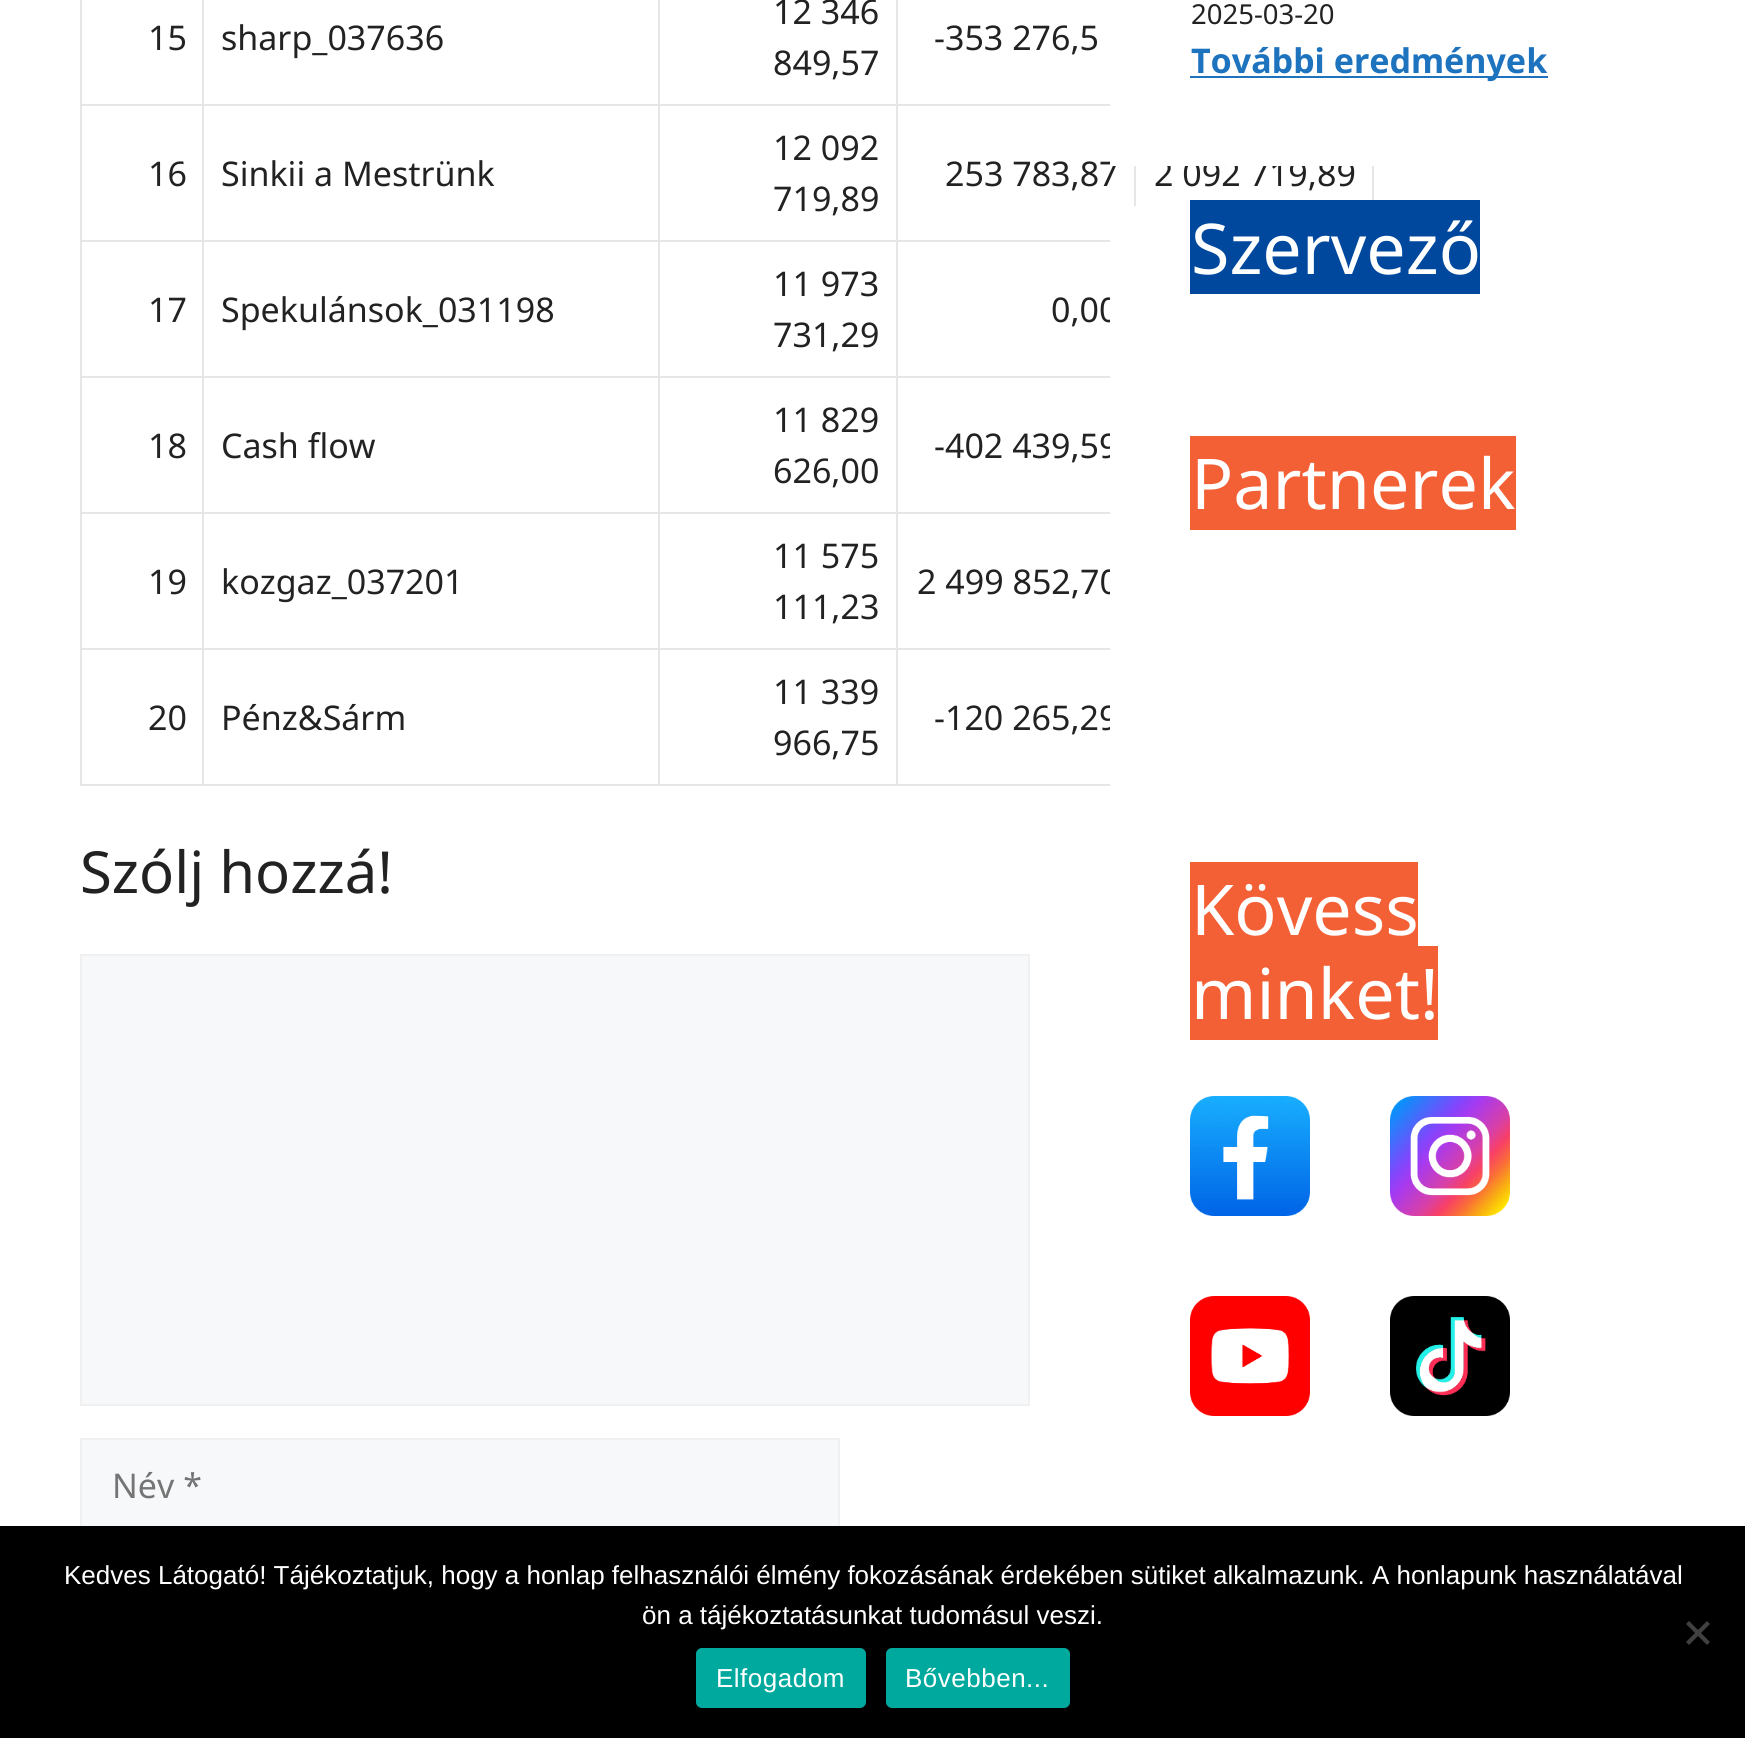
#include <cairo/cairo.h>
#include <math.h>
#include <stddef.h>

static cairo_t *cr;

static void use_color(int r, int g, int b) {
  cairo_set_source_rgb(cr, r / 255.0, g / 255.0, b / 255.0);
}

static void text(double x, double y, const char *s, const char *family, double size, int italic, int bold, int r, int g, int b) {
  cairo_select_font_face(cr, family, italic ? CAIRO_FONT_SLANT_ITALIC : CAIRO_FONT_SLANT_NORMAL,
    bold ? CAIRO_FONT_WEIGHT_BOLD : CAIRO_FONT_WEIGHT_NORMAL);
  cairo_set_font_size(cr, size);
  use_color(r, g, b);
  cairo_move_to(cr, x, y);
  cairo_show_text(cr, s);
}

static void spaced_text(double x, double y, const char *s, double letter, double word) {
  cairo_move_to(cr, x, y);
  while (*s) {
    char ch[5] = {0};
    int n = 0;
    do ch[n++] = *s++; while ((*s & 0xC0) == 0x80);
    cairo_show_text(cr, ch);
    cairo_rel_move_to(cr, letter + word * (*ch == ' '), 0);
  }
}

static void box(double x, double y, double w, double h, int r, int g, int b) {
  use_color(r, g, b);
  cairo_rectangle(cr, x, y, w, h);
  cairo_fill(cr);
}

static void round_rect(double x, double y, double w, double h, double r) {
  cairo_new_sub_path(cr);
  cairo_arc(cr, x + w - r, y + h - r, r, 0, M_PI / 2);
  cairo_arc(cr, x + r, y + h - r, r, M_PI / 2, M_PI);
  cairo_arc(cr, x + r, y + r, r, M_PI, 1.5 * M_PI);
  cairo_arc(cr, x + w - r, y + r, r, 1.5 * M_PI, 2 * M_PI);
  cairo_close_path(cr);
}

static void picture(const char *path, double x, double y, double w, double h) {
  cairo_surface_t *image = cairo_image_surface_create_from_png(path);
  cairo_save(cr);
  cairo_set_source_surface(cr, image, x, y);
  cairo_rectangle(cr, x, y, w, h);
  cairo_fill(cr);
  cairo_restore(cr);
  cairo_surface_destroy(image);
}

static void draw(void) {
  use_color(255, 255, 255);
  cairo_paint(cr);
  use_color(230, 230, 230);
  cairo_new_path(cr);
  cairo_move_to(cr, 80, 786);
  cairo_line_to(cr, 80, -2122);
  cairo_line_to(cr, 82, -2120);
  cairo_line_to(cr, 82, 786);
  cairo_close_path(cr);
  cairo_fill(cr);
  cairo_new_path(cr);
  cairo_move_to(cr, 204, -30);
  cairo_line_to(cr, 204, 106);
  cairo_line_to(cr, 202, 104);
  cairo_line_to(cr, 202, -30);
  cairo_close_path(cr);
  cairo_fill(cr);
  cairo_set_source_rgba(cr, 0, 0, 0, 0.1);
  cairo_new_path(cr);
  cairo_move_to(cr, 204, 106);
  cairo_line_to(cr, 82, 106);
  cairo_line_to(cr, 82, 104);
  cairo_line_to(cr, 202, 104);
  cairo_close_path(cr);
  cairo_fill(cr);
  use_color(230, 230, 230);
  cairo_new_path(cr);
  cairo_move_to(cr, 660, -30);
  cairo_line_to(cr, 660, 106);
  cairo_line_to(cr, 658, 104);
  cairo_line_to(cr, 658, -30);
  cairo_close_path(cr);
  cairo_fill(cr);
  cairo_set_source_rgba(cr, 0, 0, 0, 0.1);
  cairo_new_path(cr);
  cairo_move_to(cr, 660, 106);
  cairo_line_to(cr, 204, 106);
  cairo_line_to(cr, 204, 104);
  cairo_line_to(cr, 658, 104);
  cairo_close_path(cr);
  cairo_fill(cr);
  use_color(230, 230, 230);
  cairo_new_path(cr);
  cairo_move_to(cr, 898, -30);
  cairo_line_to(cr, 898, 106);
  cairo_line_to(cr, 896, 104);
  cairo_line_to(cr, 896, -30);
  cairo_close_path(cr);
  cairo_fill(cr);
  cairo_set_source_rgba(cr, 0, 0, 0, 0.1);
  cairo_new_path(cr);
  cairo_move_to(cr, 898, 106);
  cairo_line_to(cr, 660, 106);
  cairo_line_to(cr, 660, 104);
  cairo_line_to(cr, 896, 104);
  cairo_close_path(cr);
  cairo_fill(cr);
  cairo_new_path(cr);
  cairo_move_to(cr, 1136, 106);
  cairo_line_to(cr, 898, 106);
  cairo_line_to(cr, 898, 104);
  cairo_line_to(cr, 1134, 104);
  cairo_close_path(cr);
  cairo_fill(cr);
  use_color(230, 230, 230);
  cairo_new_path(cr);
  cairo_move_to(cr, 204, 106);
  cairo_line_to(cr, 204, 242);
  cairo_line_to(cr, 202, 240);
  cairo_line_to(cr, 202, 106);
  cairo_close_path(cr);
  cairo_fill(cr);
  cairo_set_source_rgba(cr, 0, 0, 0, 0.1);
  cairo_new_path(cr);
  cairo_move_to(cr, 204, 242);
  cairo_line_to(cr, 82, 242);
  cairo_line_to(cr, 82, 240);
  cairo_line_to(cr, 202, 240);
  cairo_close_path(cr);
  cairo_fill(cr);
  use_color(230, 230, 230);
  cairo_new_path(cr);
  cairo_move_to(cr, 660, 106);
  cairo_line_to(cr, 660, 242);
  cairo_line_to(cr, 658, 240);
  cairo_line_to(cr, 658, 106);
  cairo_close_path(cr);
  cairo_fill(cr);
  cairo_set_source_rgba(cr, 0, 0, 0, 0.1);
  cairo_new_path(cr);
  cairo_move_to(cr, 660, 242);
  cairo_line_to(cr, 204, 242);
  cairo_line_to(cr, 204, 240);
  cairo_line_to(cr, 658, 240);
  cairo_close_path(cr);
  cairo_fill(cr);
  use_color(230, 230, 230);
  cairo_new_path(cr);
  cairo_move_to(cr, 898, 106);
  cairo_line_to(cr, 898, 242);
  cairo_line_to(cr, 896, 240);
  cairo_line_to(cr, 896, 106);
  cairo_close_path(cr);
  cairo_fill(cr);
  cairo_set_source_rgba(cr, 0, 0, 0, 0.1);
  cairo_new_path(cr);
  cairo_move_to(cr, 898, 242);
  cairo_line_to(cr, 660, 242);
  cairo_line_to(cr, 660, 240);
  cairo_line_to(cr, 896, 240);
  cairo_close_path(cr);
  cairo_fill(cr);
  use_color(230, 230, 230);
  cairo_new_path(cr);
  cairo_move_to(cr, 1136, 106);
  cairo_line_to(cr, 1136, 242);
  cairo_line_to(cr, 1134, 240);
  cairo_line_to(cr, 1134, 106);
  cairo_close_path(cr);
  cairo_fill(cr);
  cairo_set_source_rgba(cr, 0, 0, 0, 0.1);
  cairo_new_path(cr);
  cairo_move_to(cr, 1136, 242);
  cairo_line_to(cr, 898, 242);
  cairo_line_to(cr, 898, 240);
  cairo_line_to(cr, 1134, 240);
  cairo_close_path(cr);
  cairo_fill(cr);
  use_color(230, 230, 230);
  cairo_new_path(cr);
  cairo_move_to(cr, 1374, 106);
  cairo_line_to(cr, 1374, 242);
  cairo_line_to(cr, 1372, 240);
  cairo_line_to(cr, 1372, 106);
  cairo_close_path(cr);
  cairo_fill(cr);
  cairo_new_path(cr);
  cairo_move_to(cr, 204, 242);
  cairo_line_to(cr, 204, 378);
  cairo_line_to(cr, 202, 376);
  cairo_line_to(cr, 202, 242);
  cairo_close_path(cr);
  cairo_fill(cr);
  cairo_set_source_rgba(cr, 0, 0, 0, 0.1);
  cairo_new_path(cr);
  cairo_move_to(cr, 204, 378);
  cairo_line_to(cr, 82, 378);
  cairo_line_to(cr, 82, 376);
  cairo_line_to(cr, 202, 376);
  cairo_close_path(cr);
  cairo_fill(cr);
  use_color(230, 230, 230);
  cairo_new_path(cr);
  cairo_move_to(cr, 660, 242);
  cairo_line_to(cr, 660, 378);
  cairo_line_to(cr, 658, 376);
  cairo_line_to(cr, 658, 242);
  cairo_close_path(cr);
  cairo_fill(cr);
  cairo_set_source_rgba(cr, 0, 0, 0, 0.1);
  cairo_new_path(cr);
  cairo_move_to(cr, 660, 378);
  cairo_line_to(cr, 204, 378);
  cairo_line_to(cr, 204, 376);
  cairo_line_to(cr, 658, 376);
  cairo_close_path(cr);
  cairo_fill(cr);
  use_color(230, 230, 230);
  cairo_new_path(cr);
  cairo_move_to(cr, 898, 242);
  cairo_line_to(cr, 898, 378);
  cairo_line_to(cr, 896, 376);
  cairo_line_to(cr, 896, 242);
  cairo_close_path(cr);
  cairo_fill(cr);
  cairo_set_source_rgba(cr, 0, 0, 0, 0.1);
  cairo_new_path(cr);
  cairo_move_to(cr, 898, 378);
  cairo_line_to(cr, 660, 378);
  cairo_line_to(cr, 660, 376);
  cairo_line_to(cr, 896, 376);
  cairo_close_path(cr);
  cairo_fill(cr);
  cairo_new_path(cr);
  cairo_move_to(cr, 1136, 378);
  cairo_line_to(cr, 898, 378);
  cairo_line_to(cr, 898, 376);
  cairo_line_to(cr, 1134, 376);
  cairo_close_path(cr);
  cairo_fill(cr);
  use_color(230, 230, 230);
  cairo_new_path(cr);
  cairo_move_to(cr, 204, 378);
  cairo_line_to(cr, 204, 514);
  cairo_line_to(cr, 202, 512);
  cairo_line_to(cr, 202, 378);
  cairo_close_path(cr);
  cairo_fill(cr);
  cairo_set_source_rgba(cr, 0, 0, 0, 0.1);
  cairo_new_path(cr);
  cairo_move_to(cr, 204, 514);
  cairo_line_to(cr, 82, 514);
  cairo_line_to(cr, 82, 512);
  cairo_line_to(cr, 202, 512);
  cairo_close_path(cr);
  cairo_fill(cr);
  use_color(230, 230, 230);
  cairo_new_path(cr);
  cairo_move_to(cr, 660, 378);
  cairo_line_to(cr, 660, 514);
  cairo_line_to(cr, 658, 512);
  cairo_line_to(cr, 658, 378);
  cairo_close_path(cr);
  cairo_fill(cr);
  cairo_set_source_rgba(cr, 0, 0, 0, 0.1);
  cairo_new_path(cr);
  cairo_move_to(cr, 660, 514);
  cairo_line_to(cr, 204, 514);
  cairo_line_to(cr, 204, 512);
  cairo_line_to(cr, 658, 512);
  cairo_close_path(cr);
  cairo_fill(cr);
  use_color(230, 230, 230);
  cairo_new_path(cr);
  cairo_move_to(cr, 898, 378);
  cairo_line_to(cr, 898, 514);
  cairo_line_to(cr, 896, 512);
  cairo_line_to(cr, 896, 378);
  cairo_close_path(cr);
  cairo_fill(cr);
  cairo_set_source_rgba(cr, 0, 0, 0, 0.1);
  cairo_new_path(cr);
  cairo_move_to(cr, 898, 514);
  cairo_line_to(cr, 660, 514);
  cairo_line_to(cr, 660, 512);
  cairo_line_to(cr, 896, 512);
  cairo_close_path(cr);
  cairo_fill(cr);
  cairo_new_path(cr);
  cairo_move_to(cr, 1136, 514);
  cairo_line_to(cr, 898, 514);
  cairo_line_to(cr, 898, 512);
  cairo_line_to(cr, 1134, 512);
  cairo_close_path(cr);
  cairo_fill(cr);
  use_color(230, 230, 230);
  cairo_new_path(cr);
  cairo_move_to(cr, 204, 514);
  cairo_line_to(cr, 204, 650);
  cairo_line_to(cr, 202, 648);
  cairo_line_to(cr, 202, 514);
  cairo_close_path(cr);
  cairo_fill(cr);
  cairo_set_source_rgba(cr, 0, 0, 0, 0.1);
  cairo_new_path(cr);
  cairo_move_to(cr, 204, 650);
  cairo_line_to(cr, 82, 650);
  cairo_line_to(cr, 82, 648);
  cairo_line_to(cr, 202, 648);
  cairo_close_path(cr);
  cairo_fill(cr);
  use_color(230, 230, 230);
  cairo_new_path(cr);
  cairo_move_to(cr, 660, 514);
  cairo_line_to(cr, 660, 650);
  cairo_line_to(cr, 658, 648);
  cairo_line_to(cr, 658, 514);
  cairo_close_path(cr);
  cairo_fill(cr);
  cairo_set_source_rgba(cr, 0, 0, 0, 0.1);
  cairo_new_path(cr);
  cairo_move_to(cr, 660, 650);
  cairo_line_to(cr, 204, 650);
  cairo_line_to(cr, 204, 648);
  cairo_line_to(cr, 658, 648);
  cairo_close_path(cr);
  cairo_fill(cr);
  use_color(230, 230, 230);
  cairo_new_path(cr);
  cairo_move_to(cr, 898, 514);
  cairo_line_to(cr, 898, 650);
  cairo_line_to(cr, 896, 648);
  cairo_line_to(cr, 896, 514);
  cairo_close_path(cr);
  cairo_fill(cr);
  cairo_set_source_rgba(cr, 0, 0, 0, 0.1);
  cairo_new_path(cr);
  cairo_move_to(cr, 898, 650);
  cairo_line_to(cr, 660, 650);
  cairo_line_to(cr, 660, 648);
  cairo_line_to(cr, 896, 648);
  cairo_close_path(cr);
  cairo_fill(cr);
  cairo_new_path(cr);
  cairo_move_to(cr, 1136, 650);
  cairo_line_to(cr, 898, 650);
  cairo_line_to(cr, 898, 648);
  cairo_line_to(cr, 1134, 648);
  cairo_close_path(cr);
  cairo_fill(cr);
  use_color(230, 230, 230);
  cairo_new_path(cr);
  cairo_move_to(cr, 204, 650);
  cairo_line_to(cr, 204, 786);
  cairo_line_to(cr, 202, 784);
  cairo_line_to(cr, 202, 650);
  cairo_close_path(cr);
  cairo_fill(cr);
  cairo_set_source_rgba(cr, 0, 0, 0, 0.1);
  cairo_new_path(cr);
  cairo_move_to(cr, 204, 786);
  cairo_line_to(cr, 82, 786);
  cairo_line_to(cr, 82, 784);
  cairo_line_to(cr, 202, 784);
  cairo_close_path(cr);
  cairo_fill(cr);
  use_color(230, 230, 230);
  cairo_new_path(cr);
  cairo_move_to(cr, 660, 650);
  cairo_line_to(cr, 660, 786);
  cairo_line_to(cr, 658, 784);
  cairo_line_to(cr, 658, 650);
  cairo_close_path(cr);
  cairo_fill(cr);
  cairo_set_source_rgba(cr, 0, 0, 0, 0.1);
  cairo_new_path(cr);
  cairo_move_to(cr, 660, 786);
  cairo_line_to(cr, 204, 786);
  cairo_line_to(cr, 204, 784);
  cairo_line_to(cr, 658, 784);
  cairo_close_path(cr);
  cairo_fill(cr);
  use_color(230, 230, 230);
  cairo_new_path(cr);
  cairo_move_to(cr, 898, 650);
  cairo_line_to(cr, 898, 786);
  cairo_line_to(cr, 896, 784);
  cairo_line_to(cr, 896, 650);
  cairo_close_path(cr);
  cairo_fill(cr);
  cairo_set_source_rgba(cr, 0, 0, 0, 0.1);
  cairo_new_path(cr);
  cairo_move_to(cr, 898, 786);
  cairo_line_to(cr, 660, 786);
  cairo_line_to(cr, 660, 784);
  cairo_line_to(cr, 896, 784);
  cairo_close_path(cr);
  cairo_fill(cr);
  cairo_new_path(cr);
  cairo_move_to(cr, 1136, 786);
  cairo_line_to(cr, 898, 786);
  cairo_line_to(cr, 898, 784);
  cairo_line_to(cr, 1134, 784);
  cairo_close_path(cr);
  cairo_fill(cr);
  use_color(247, 248, 249);
  cairo_rectangle(cr, 81, 955, 948, 450);
  cairo_fill_preserve(cr);
  use_color(240, 240, 240);
  cairo_stroke(cr);
  box(82, 1440, 756, 86, 247, 248, 249);
  cairo_rectangle(cr, 81, 1439, 758, 94);
  use_color(240, 240, 240);
  cairo_stroke(cr);
  box(1190, 76, 358, 2, 30, 115, 190);
  box(1190, 862, 228, 84, 244, 96, 54);
  box(1190, 946, 248, 94, 244, 96, 54);
  picture("img_01.png", 1190, 1096, 120, 120);
  picture("img_02.png", 1390, 1096, 120, 120);
  picture("img_03.png", 1190, 1296, 120, 120);
  picture("img_04.png", 1390, 1296, 120, 120);
  box(0, 1526, 1745, 212, 0, 0, 0);
  use_color(64, 64, 64);
  cairo_new_path(cr);
  cairo_move_to(cr, 1707, 1621);
  cairo_line_to(cr, 1710, 1624);
  cairo_line_to(cr, 1689, 1645);
  cairo_line_to(cr, 1686, 1642);
  cairo_close_path(cr);
  cairo_fill(cr);
  cairo_new_path(cr);
  cairo_move_to(cr, 1686, 1624);
  cairo_line_to(cr, 1689, 1621);
  cairo_line_to(cr, 1710, 1642);
  cairo_line_to(cr, 1707, 1645);
  cairo_close_path(cr);
  cairo_fill(cr);
  use_color(0, 169, 157);
  round_rect(696, 1648, 170, 60, 6);
  cairo_fill(cr);
  round_rect(886, 1648, 184, 60, 6);
  cairo_fill(cr);
  text(148, 50, "15", "Noto Sans", 34, 0, 0, 34, 34, 34);
  text(221, 50, "sharp_037636", "Noto Sans", 34, 0, 0, 34, 34, 34);
  text(773, 24, "12 346", "Noto Sans", 34, 0, 0, 34, 34, 34);
  text(773, 75, "849,57", "Noto Sans", 34, 0, 0, 34, 34, 34);
  text(934, 50, "-353 276,5", "Noto Sans", 34, 0, 0, 34, 34, 34);
  text(148, 186, "16", "Noto Sans", 34, 0, 0, 34, 34, 34);
  text(221, 186, "Sinkii a Mestrünk", "Noto Sans", 34, 0, 0, 34, 34, 34);
  text(773, 160, "12 092", "Noto Sans", 34, 0, 0, 34, 34, 34);
  text(773, 211, "719,89", "Noto Sans", 34, 0, 0, 34, 34, 34);
  text(945, 186, "253 783,87", "Noto Sans", 34, 0, 0, 34, 34, 34);
  text(1154, 186, "2 092 719,89", "Noto Sans", 34, 0, 0, 34, 34, 34);
  text(148, 322, "17", "Noto Sans", 34, 0, 0, 34, 34, 34);
  text(221, 322, "Spekulánsok_031198", "Noto Sans", 34, 0, 0, 34, 34, 34);
  text(773, 296, "11 973", "Noto Sans", 34, 0, 0, 34, 34, 34);
  text(773, 347, "731,29", "Noto Sans", 34, 0, 0, 34, 34, 34);
  text(1051, 322, "0,00", "Noto Sans", 34, 0, 0, 34, 34, 34);
  text(148, 458, "18", "Noto Sans", 34, 0, 0, 34, 34, 34);
  text(221, 458, "Cash flow", "Noto Sans", 34, 0, 0, 34, 34, 34);
  text(773, 432, "11 829", "Noto Sans", 34, 0, 0, 34, 34, 34);
  text(773, 483, "626,00", "Noto Sans", 34, 0, 0, 34, 34, 34);
  text(934, 458, "-402 439,59", "Noto Sans", 34, 0, 0, 34, 34, 34);
  text(148, 594, "19", "Noto Sans", 34, 0, 0, 34, 34, 34);
  text(221, 594, "kozgaz_037201", "Noto Sans", 34, 0, 0, 34, 34, 34);
  text(773, 568, "11 575", "Noto Sans", 34, 0, 0, 34, 34, 34);
  text(773, 619, "111,23", "Noto Sans", 34, 0, 0, 34, 34, 34);
  text(917, 594, "2 499 852,70", "Noto Sans", 34, 0, 0, 34, 34, 34);
  text(148, 730, "20", "Noto Sans", 34, 0, 0, 34, 34, 34);
  text(221, 730, "Pénz&Sárm", "Noto Sans", 34, 0, 0, 34, 34, 34);
  text(773, 704, "11 339", "Noto Sans", 34, 0, 0, 34, 34, 34);
  text(773, 755, "966,75", "Noto Sans", 34, 0, 0, 34, 34, 34);
  text(934, 730, "-120 265,29", "Noto Sans", 34, 0, 0, 34, 34, 34);
  text(80, 893, "Szólj hozzá!", "Noto Sans", 58, 0, 0, 34, 34, 34);
  text(112, 1498, "Név *", "Noto Sans", 34, 0, 0, 117, 117, 117);
  box(1110, 104, 264, 62, 255, 255, 255);
  text(1191, 24, "2025-03-20", "Noto Sans", 27.5, 0, 0, 34, 34, 34);
  text(1191, 73, "További eredmények", "Noto Sans", 34, 0, 1, 30, 115, 190);
  box(1110, 206, 264, 580, 255, 255, 255);
  box(1190, 200, 290, 94, 0, 72, 157);
  text(1191, 274, "Szervező", "Noto Sans", 70, 0, 0, 255, 255, 255);
  box(1190, 436, 326, 94, 244, 96, 54);
  text(1191, 509, "Partnerek", "Noto Sans", 70, 0, 0, 255, 255, 255);
  text(1191, 935, "Kövess", "Noto Sans", 70, 0, 0, 255, 255, 255);
  text(1191, 1019, "minket!", "Noto Sans", 70, 0, 0, 255, 255, 255);
  text(64, 1584, "Kedves Látogató! Tájékoztatjuk, hogy a honlap felhasználói élmény fokozásának érdekében sütiket alkalmazunk. A honlapunk használatával", "Liberation Sans", 26, 0, 0, 255, 255, 255);
  text(642, 1624, "ön a tájékoztatásunkat tudomásul veszi.", "Liberation Sans", 26, 0, 0, 255, 255, 255);
  spaced_text(716, 1687, "Elfogadom", 0.5, 0);
  spaced_text(905, 1687, "Bővebben...", 0.5, 0);
}

int main(void) {
  cairo_surface_t *surface = cairo_image_surface_create(CAIRO_FORMAT_RGB24, 1745, 1738);
  cr = cairo_create(surface);
  cairo_font_options_t *options = cairo_font_options_create();
  cairo_font_options_set_hint_metrics(options, CAIRO_HINT_METRICS_OFF);
  cairo_font_options_set_hint_style(options, CAIRO_HINT_STYLE_NONE);
  cairo_set_font_options(cr, options);
  cairo_set_miter_limit(cr, 4);
  draw();
  cairo_surface_write_to_png(surface, "out.png");
  cairo_font_options_destroy(options);
  cairo_destroy(cr);
  cairo_surface_destroy(surface);
  return 0;
}
